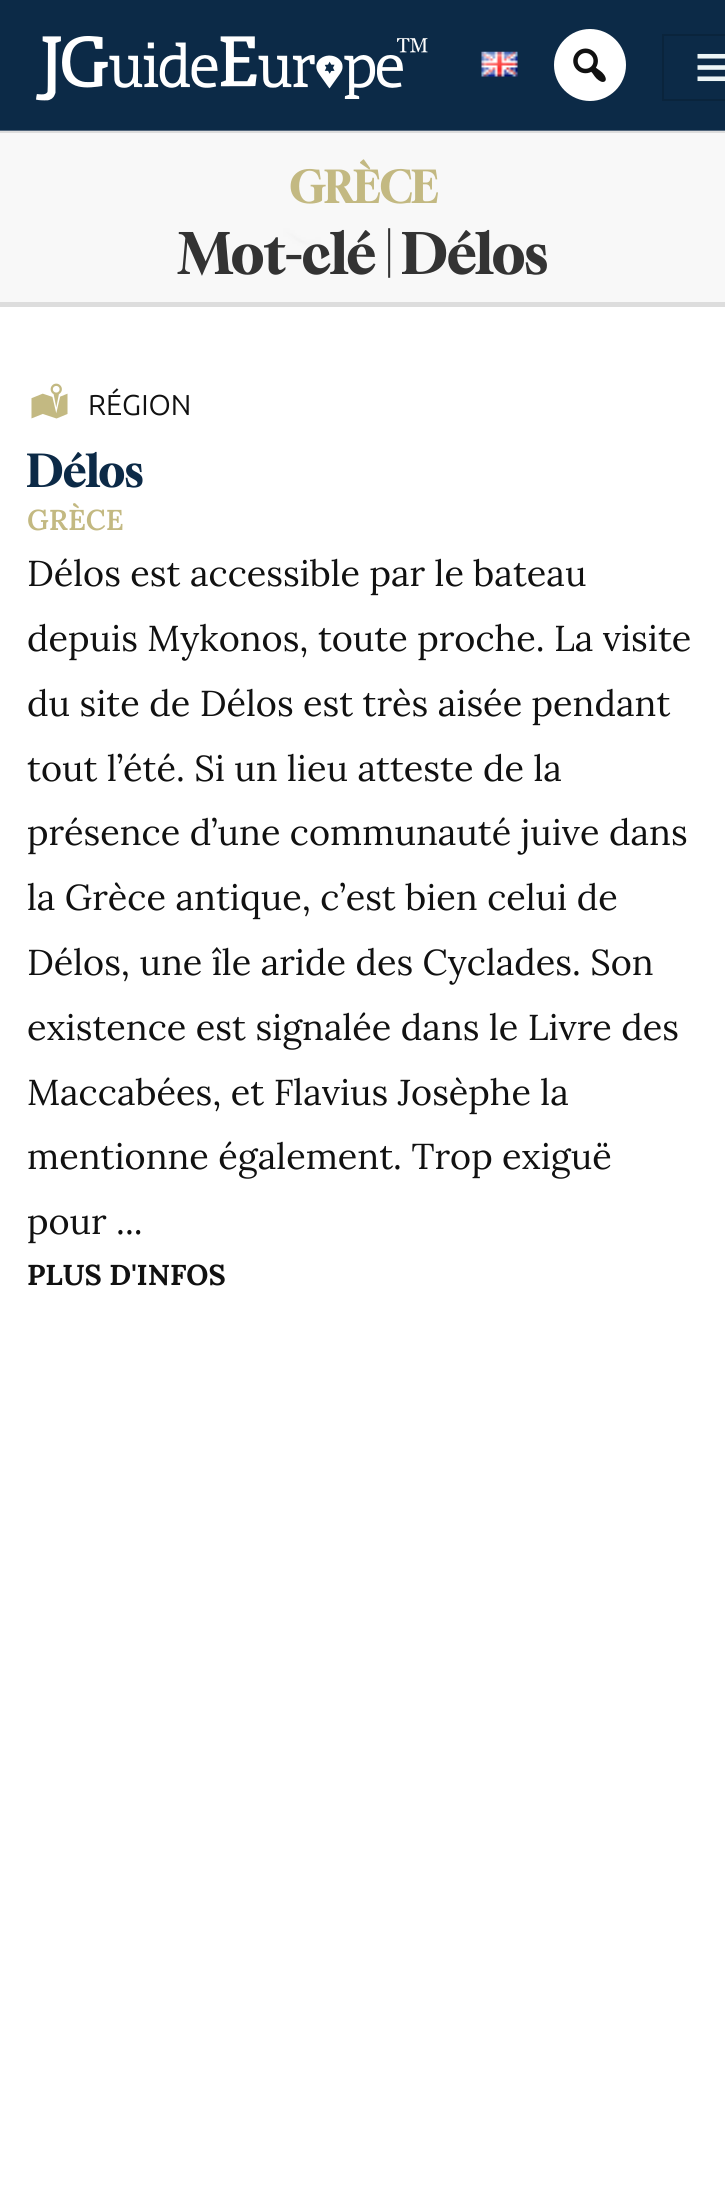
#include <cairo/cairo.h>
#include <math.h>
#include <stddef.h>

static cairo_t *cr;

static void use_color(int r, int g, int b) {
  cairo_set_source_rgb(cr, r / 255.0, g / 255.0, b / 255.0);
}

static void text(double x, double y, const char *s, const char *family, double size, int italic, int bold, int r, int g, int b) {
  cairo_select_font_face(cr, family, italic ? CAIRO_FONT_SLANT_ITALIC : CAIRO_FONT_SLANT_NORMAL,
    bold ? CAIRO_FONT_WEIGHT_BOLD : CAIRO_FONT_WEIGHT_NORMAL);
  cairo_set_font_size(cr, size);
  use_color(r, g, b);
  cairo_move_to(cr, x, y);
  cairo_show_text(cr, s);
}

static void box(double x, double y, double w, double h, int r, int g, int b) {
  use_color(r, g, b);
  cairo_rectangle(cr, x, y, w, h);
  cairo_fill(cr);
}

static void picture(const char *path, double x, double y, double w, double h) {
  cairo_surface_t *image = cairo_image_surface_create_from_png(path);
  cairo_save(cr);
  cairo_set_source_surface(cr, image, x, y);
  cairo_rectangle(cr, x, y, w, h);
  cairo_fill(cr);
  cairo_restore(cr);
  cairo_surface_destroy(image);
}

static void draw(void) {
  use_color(255, 255, 255);
  cairo_paint(cr);
  box(0, 0, 725, 131, 12, 42, 71);
  picture("img_01.png", 36, 36, 392, 65);
  picture("img_02.png", 481, 51, 37, 26);
  use_color(255, 255, 255);
  cairo_arc(cr, 590, 65, 36, 0, 2 * M_PI);
  cairo_fill(cr);
  picture("img_03.png", 573, 48, 33, 34);
  cairo_rectangle(cr, 663, 35, 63, 65);
  use_color(10, 36, 60);
  cairo_stroke(cr);
  picture("img_04.png", 697, 53, 28, 29);
  box(0, 133, 725, 169, 238, 238, 238);
  picture("img_05.png", 0, 130, 725, 172);
  box(0, 131, 725, 2, 221, 221, 221);
  box(0, 302, 725, 5, 221, 221, 221);
  picture("img_06.png", 31, 383, 37, 36);
  text(289, 203, "GRÈCE", "Gloock", 43, 0, 1, 195, 185, 130);
  text(179, 274, "Mot-clé | Délos", "Gloock", 54, 0, 1, 51, 51, 51);
  text(88, 415, "RÉGION", "Ubuntu Sans", 28.75, 0, 0, 17, 17, 17);
  text(27, 487, "Délos", "Gloock", 43, 0, 1, 12, 42, 71);
  text(27, 530, "GRÈCE", "Lora SemiBold", 28.75, 0, 0, 195, 185, 130);
  text(27, 586, "Délos est accessible par le bateau", "Lora", 36, 0, 0, 17, 17, 17);
  text(27, 651, "depuis Mykonos, toute proche. La visite", "Lora", 36, 0, 0, 17, 17, 17);
  text(27, 716, "du site de Délos est très aisée pendant", "Lora", 36, 0, 0, 17, 17, 17);
  text(27, 781, "tout l’été. Si un lieu atteste de la", "Lora", 36, 0, 0, 17, 17, 17);
  text(27, 845, "présence d’une communauté juive dans", "Lora", 36, 0, 0, 17, 17, 17);
  text(27, 910, "la Grèce antique, c’est bien celui de", "Lora", 36, 0, 0, 17, 17, 17);
  text(27, 975, "Délos, une île aride des Cyclades. Son", "Lora", 36, 0, 0, 17, 17, 17);
  text(27, 1040, "existence est signalée dans le Livre des", "Lora", 36, 0, 0, 17, 17, 17);
  text(27, 1105, "Maccabées, et Flavius Josèphe la", "Lora", 36, 0, 0, 17, 17, 17);
  text(27, 1169, "mentionne également. Trop exiguë", "Lora", 36, 0, 0, 17, 17, 17);
  text(27, 1234, "pour ...", "Lora", 36, 0, 0, 17, 17, 17);
  text(27, 1285, "PLUS D'INFOS", "Lora", 28.75, 0, 1, 17, 17, 17);
}

int main(void) {
  cairo_surface_t *surface = cairo_image_surface_create(CAIRO_FORMAT_RGB24, 725, 2192);
  cr = cairo_create(surface);
  cairo_font_options_t *options = cairo_font_options_create();
  cairo_font_options_set_hint_metrics(options, CAIRO_HINT_METRICS_OFF);
  cairo_font_options_set_hint_style(options, CAIRO_HINT_STYLE_NONE);
  cairo_set_font_options(cr, options);
  cairo_set_miter_limit(cr, 4);
  draw();
  cairo_surface_write_to_png(surface, "out.png");
  cairo_font_options_destroy(options);
  cairo_destroy(cr);
  cairo_surface_destroy(surface);
  return 0;
}
